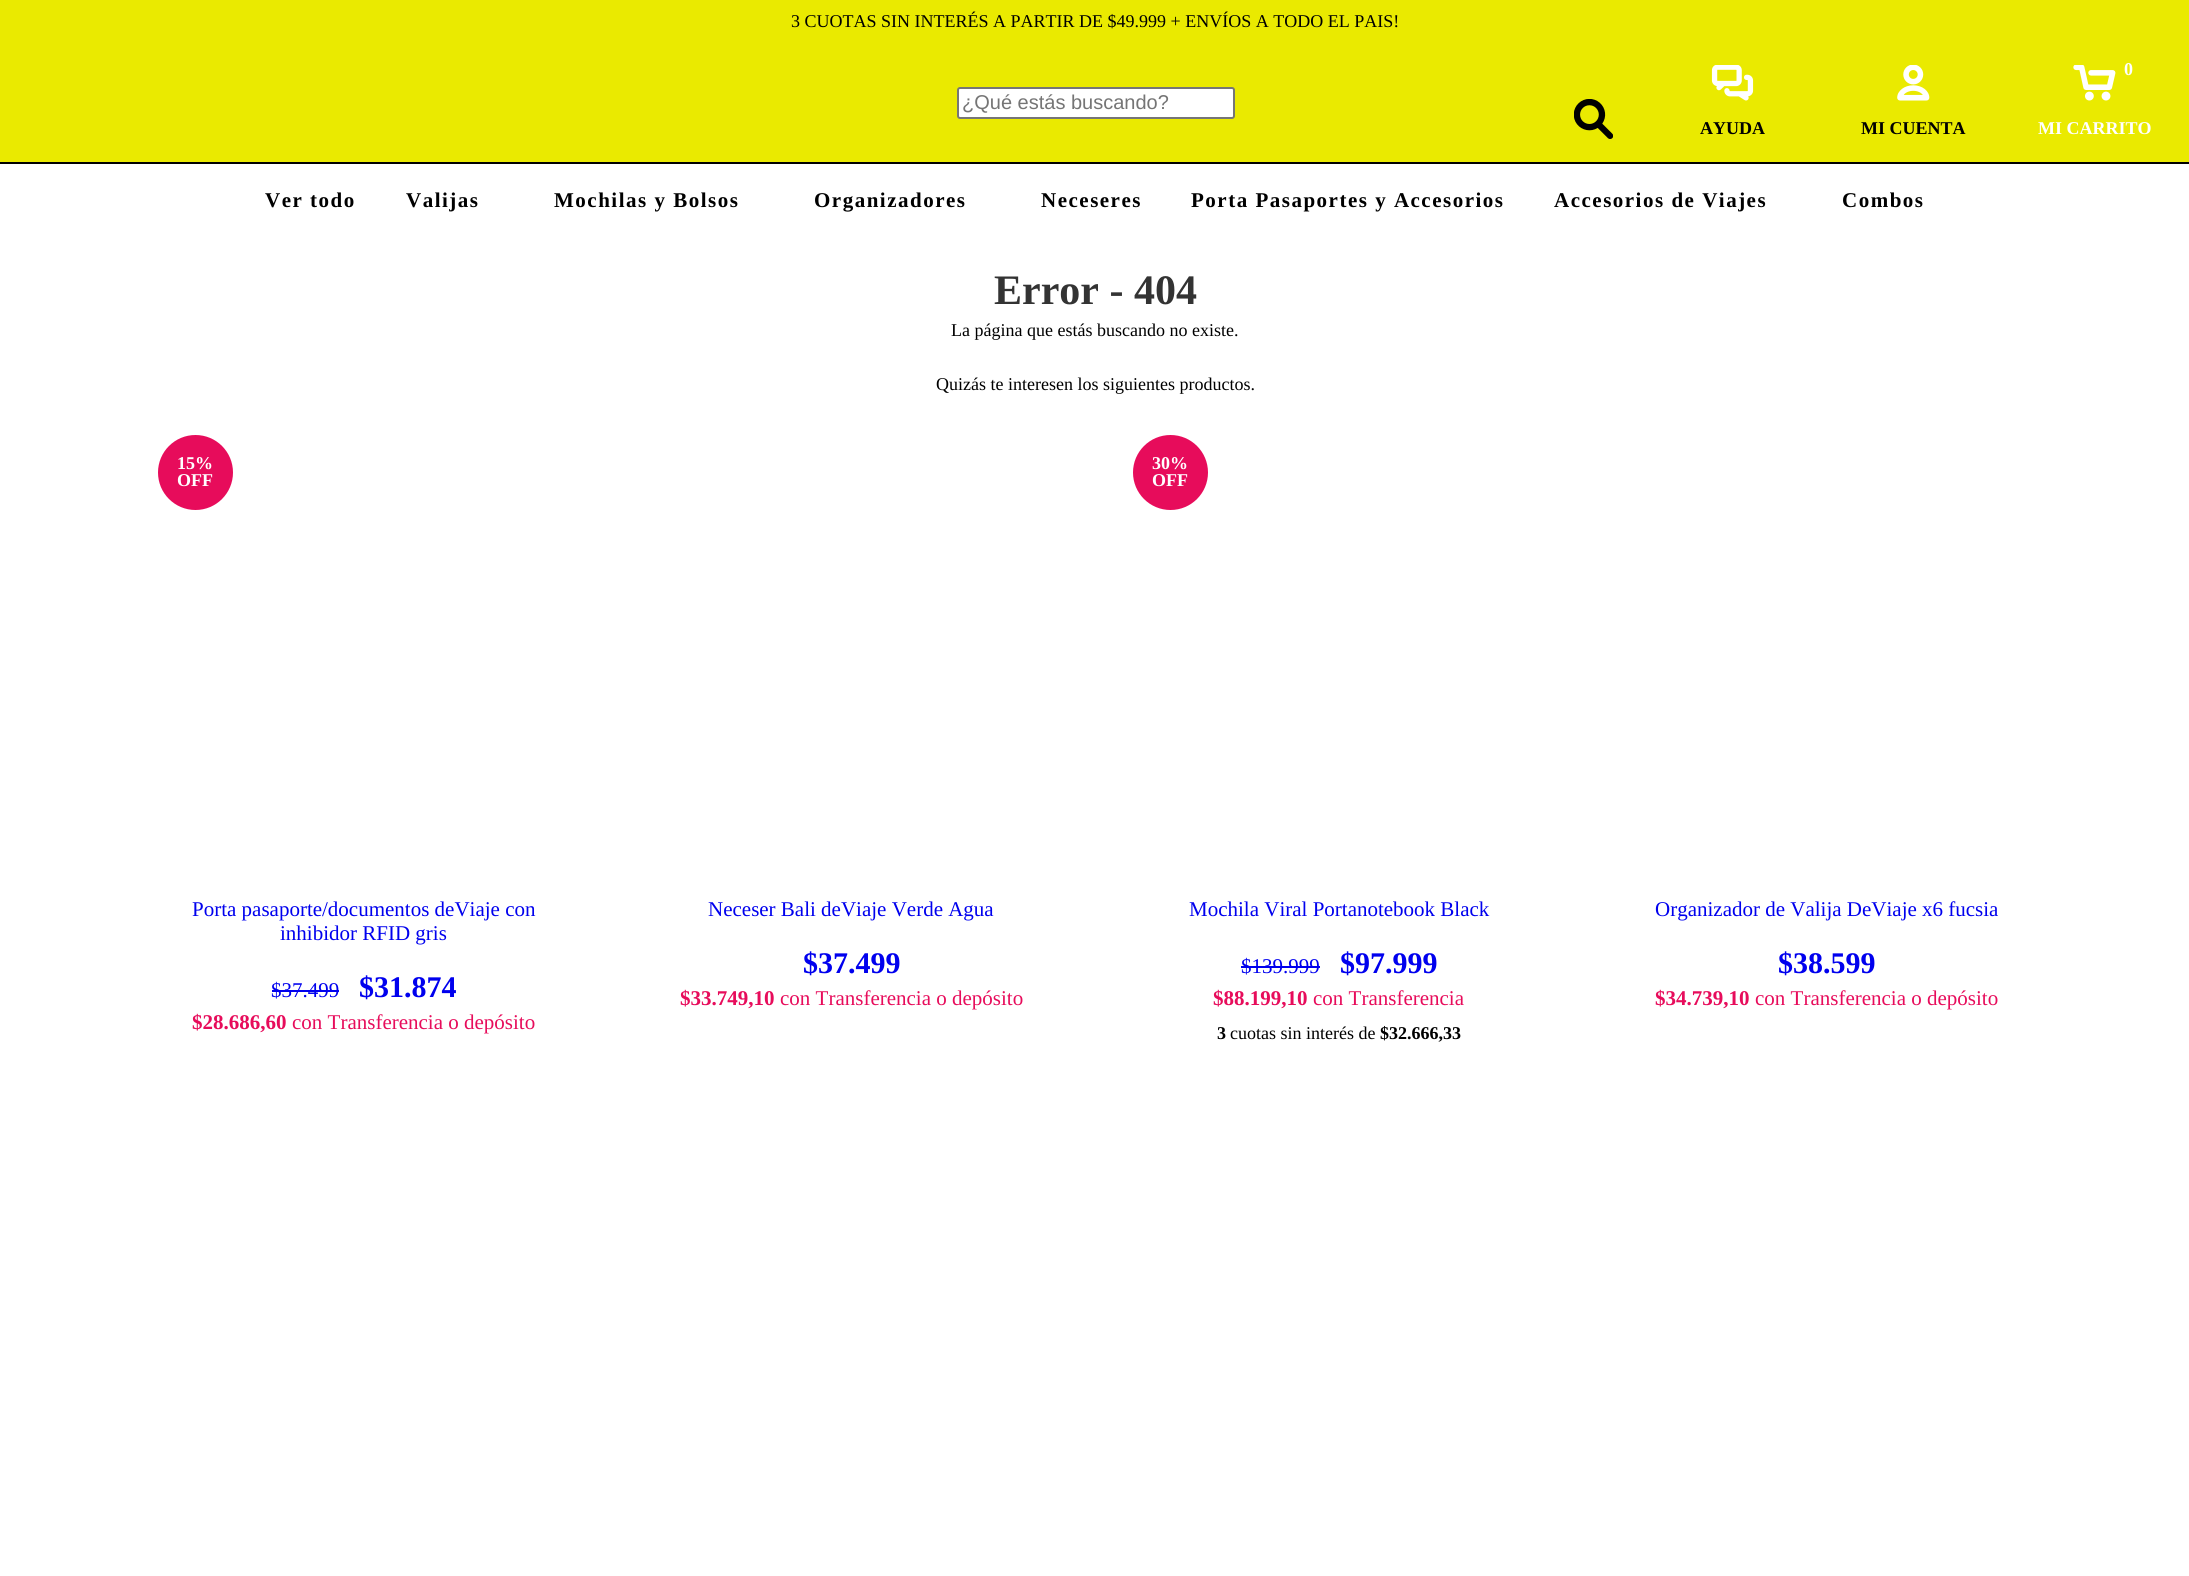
#include <cairo/cairo.h>
#include <math.h>
#include <stddef.h>

static cairo_t *cr;

static void use_color(int r, int g, int b) {
  cairo_set_source_rgb(cr, r / 255.0, g / 255.0, b / 255.0);
}

static void text(double x, double y, const char *s, const char *family, double size, int italic, int bold, int r, int g, int b) {
  cairo_select_font_face(cr, family, italic ? CAIRO_FONT_SLANT_ITALIC : CAIRO_FONT_SLANT_NORMAL,
    bold ? CAIRO_FONT_WEIGHT_BOLD : CAIRO_FONT_WEIGHT_NORMAL);
  cairo_set_font_size(cr, size);
  use_color(r, g, b);
  cairo_move_to(cr, x, y);
  cairo_show_text(cr, s);
}

static void spaced_text(double x, double y, const char *s, double letter, double word) {
  cairo_move_to(cr, x, y);
  while (*s) {
    char ch[5] = {0};
    int n = 0;
    do ch[n++] = *s++; while ((*s & 0xC0) == 0x80);
    cairo_show_text(cr, ch);
    cairo_rel_move_to(cr, letter + word * (*ch == ' '), 0);
  }
}

static void box(double x, double y, double w, double h, int r, int g, int b) {
  use_color(r, g, b);
  cairo_rectangle(cr, x, y, w, h);
  cairo_fill(cr);
}

static void round_rect(double x, double y, double w, double h, double r) {
  cairo_new_sub_path(cr);
  cairo_arc(cr, x + w - r, y + h - r, r, 0, M_PI / 2);
  cairo_arc(cr, x + r, y + h - r, r, M_PI / 2, M_PI);
  cairo_arc(cr, x + r, y + r, r, M_PI, 1.5 * M_PI);
  cairo_arc(cr, x + w - r, y + r, r, 1.5 * M_PI, 2 * M_PI);
  cairo_close_path(cr);
}

static void picture(const char *path, double x, double y, double w, double h) {
  cairo_surface_t *image = cairo_image_surface_create_from_png(path);
  cairo_save(cr);
  cairo_set_source_surface(cr, image, x, y);
  cairo_rectangle(cr, x, y, w, h);
  cairo_fill(cr);
  cairo_restore(cr);
  cairo_surface_destroy(image);
}

static void draw(void) {
  use_color(255, 255, 255);
  cairo_paint(cr);
  box(0, 0, 2189, 162, 234, 234, 0);
  use_color(255, 255, 255);
  round_rect(958, 88, 276, 30, 2);
  cairo_fill_preserve(cr);
  use_color(118, 118, 118);
  cairo_stroke(cr);
  picture("img_01.png", 1574, 99, 39, 40);
  picture("img_02.png", 1711, 65, 43, 36);
  picture("img_03.png", 1897, 65, 33, 36);
  picture("img_04.png", 2073, 65, 43, 36);
  box(0, 162, 2189, 2, 0, 0, 0);
  use_color(231, 12, 91);
  cairo_arc(cr, 195.5, 472.5, 37.5, 0, 2 * M_PI);
  cairo_fill(cr);
  box(272, 990, 67, 2, 0, 0, 238);
  use_color(231, 12, 91);
  cairo_arc(cr, 1170.5, 472.5, 37.5, 0, 2 * M_PI);
  cairo_fill(cr);
  box(1241, 966, 79, 2, 0, 0, 238);
  text(791, 27, "3 CUOTAS SIN INTERÉS A PARTIR DE $49.999 + ENVÍOS A TODO EL PAIS!", "Liberation Serif", 18, 0, 0, 0, 0, 0);
  text(962, 109, "¿Qué estás buscando?", "Liberation Sans", 20, 0, 0, 117, 117, 117);
  text(1700, 134, "AYUDA", "Liberation Serif", 18, 0, 1, 0, 0, 0);
  text(1861, 134, "MI CUENTA", "Liberation Serif", 18, 0, 1, 0, 0, 0);
  text(2124, 75, "0", "Liberation Serif", 18, 0, 1, 255, 255, 255);
  text(2038, 134, "MI CARRITO", "Liberation Serif", 18, 0, 1, 255, 255, 255);
  cairo_set_font_size(cr, 21);
  use_color(0, 0, 0);
  spaced_text(265, 207, "Ver todo", 1.5, 0);
  spaced_text(406, 207, "Valijas", 1.5, 0);
  spaced_text(554, 207, "Mochilas y Bolsos", 1.5, 0);
  spaced_text(814, 207, "Organizadores", 1.5, 0);
  spaced_text(1041, 207, "Neceseres", 1.5, 0);
  spaced_text(1191, 207, "Porta Pasaportes y Accesorios", 1.5, 0);
  spaced_text(1554, 207, "Accesorios de Viajes", 1.5, 0);
  spaced_text(1842, 207, "Combos", 1.5, 0);
  text(994, 304, "Error - 404", "Liberation Serif", 42, 0, 1, 51, 51, 51);
  text(951, 336, "La página que estás buscando no existe.", "Liberation Serif", 18, 0, 0, 0, 0, 0);
  text(936, 390, "Quizás te interesen los siguientes productos.", "Liberation Serif", 18, 0, 0, 0, 0, 0);
  text(177, 469, "15%", "Liberation Serif", 18, 0, 1, 255, 255, 255);
  text(177, 486, "OFF", "Liberation Serif", 18, 0, 1, 255, 255, 255);
  text(192, 916, "Porta pasaporte/documentos deViaje con", "Liberation Serif", 21, 0, 0, 0, 0, 238);
  text(280, 940, "inhibidor RFID gris", "Liberation Serif", 21, 0, 0, 0, 0, 238);
  text(271, 997, "$37.499", "Liberation Serif", 21, 0, 0, 0, 0, 238);
  text(359, 997, "$31.874", "Liberation Serif", 30, 0, 1, 0, 0, 238);
  text(192, 1029, "$28.686,60", "Liberation Serif", 21, 0, 1, 231, 12, 91);
  text(292, 1029, "con Transferencia o depósito", "Liberation Serif", 21, 0, 0, 231, 12, 91);
  text(708, 916, "Neceser Bali deViaje Verde Agua", "Liberation Serif", 21, 0, 0, 0, 0, 238);
  text(803, 973, "$37.499", "Liberation Serif", 30, 0, 1, 0, 0, 238);
  text(680, 1005, "$33.749,10", "Liberation Serif", 21, 0, 1, 231, 12, 91);
  text(780, 1005, "con Transferencia o depósito", "Liberation Serif", 21, 0, 0, 231, 12, 91);
  text(1152, 469, "30%", "Liberation Serif", 18, 0, 1, 255, 255, 255);
  text(1152, 486, "OFF", "Liberation Serif", 18, 0, 1, 255, 255, 255);
  text(1189, 916, "Mochila Viral Portanotebook Black", "Liberation Serif", 21, 0, 0, 0, 0, 238);
  text(1241, 973, "$139.999", "Liberation Serif", 21, 0, 0, 0, 0, 238);
  text(1340, 973, "$97.999", "Liberation Serif", 30, 0, 1, 0, 0, 238);
  text(1213, 1005, "$88.199,10", "Liberation Serif", 21, 0, 1, 231, 12, 91);
  text(1313, 1005, "con Transferencia", "Liberation Serif", 21, 0, 0, 231, 12, 91);
  text(1217, 1039, "3", "Liberation Serif", 18, 0, 1, 0, 0, 0);
  text(1230, 1039, "cuotas sin interés de", "Liberation Serif", 18, 0, 0, 0, 0, 0);
  text(1380, 1039, "$32.666,33", "Liberation Serif", 18, 0, 1, 0, 0, 0);
  text(1655, 916, "Organizador de Valija DeViaje x6 fucsia", "Liberation Serif", 21, 0, 0, 0, 0, 238);
  text(1778, 973, "$38.599", "Liberation Serif", 30, 0, 1, 0, 0, 238);
  text(1655, 1005, "$34.739,10", "Liberation Serif", 21, 0, 1, 231, 12, 91);
  text(1755, 1005, "con Transferencia o depósito", "Liberation Serif", 21, 0, 0, 231, 12, 91);
}

int main(void) {
  cairo_surface_t *surface = cairo_image_surface_create(CAIRO_FORMAT_RGB24, 2189, 1576);
  cr = cairo_create(surface);
  cairo_font_options_t *options = cairo_font_options_create();
  cairo_font_options_set_hint_metrics(options, CAIRO_HINT_METRICS_OFF);
  cairo_font_options_set_hint_style(options, CAIRO_HINT_STYLE_NONE);
  cairo_set_font_options(cr, options);
  cairo_set_miter_limit(cr, 4);
  draw();
  cairo_surface_write_to_png(surface, "out.png");
  cairo_font_options_destroy(options);
  cairo_destroy(cr);
  cairo_surface_destroy(surface);
  return 0;
}
